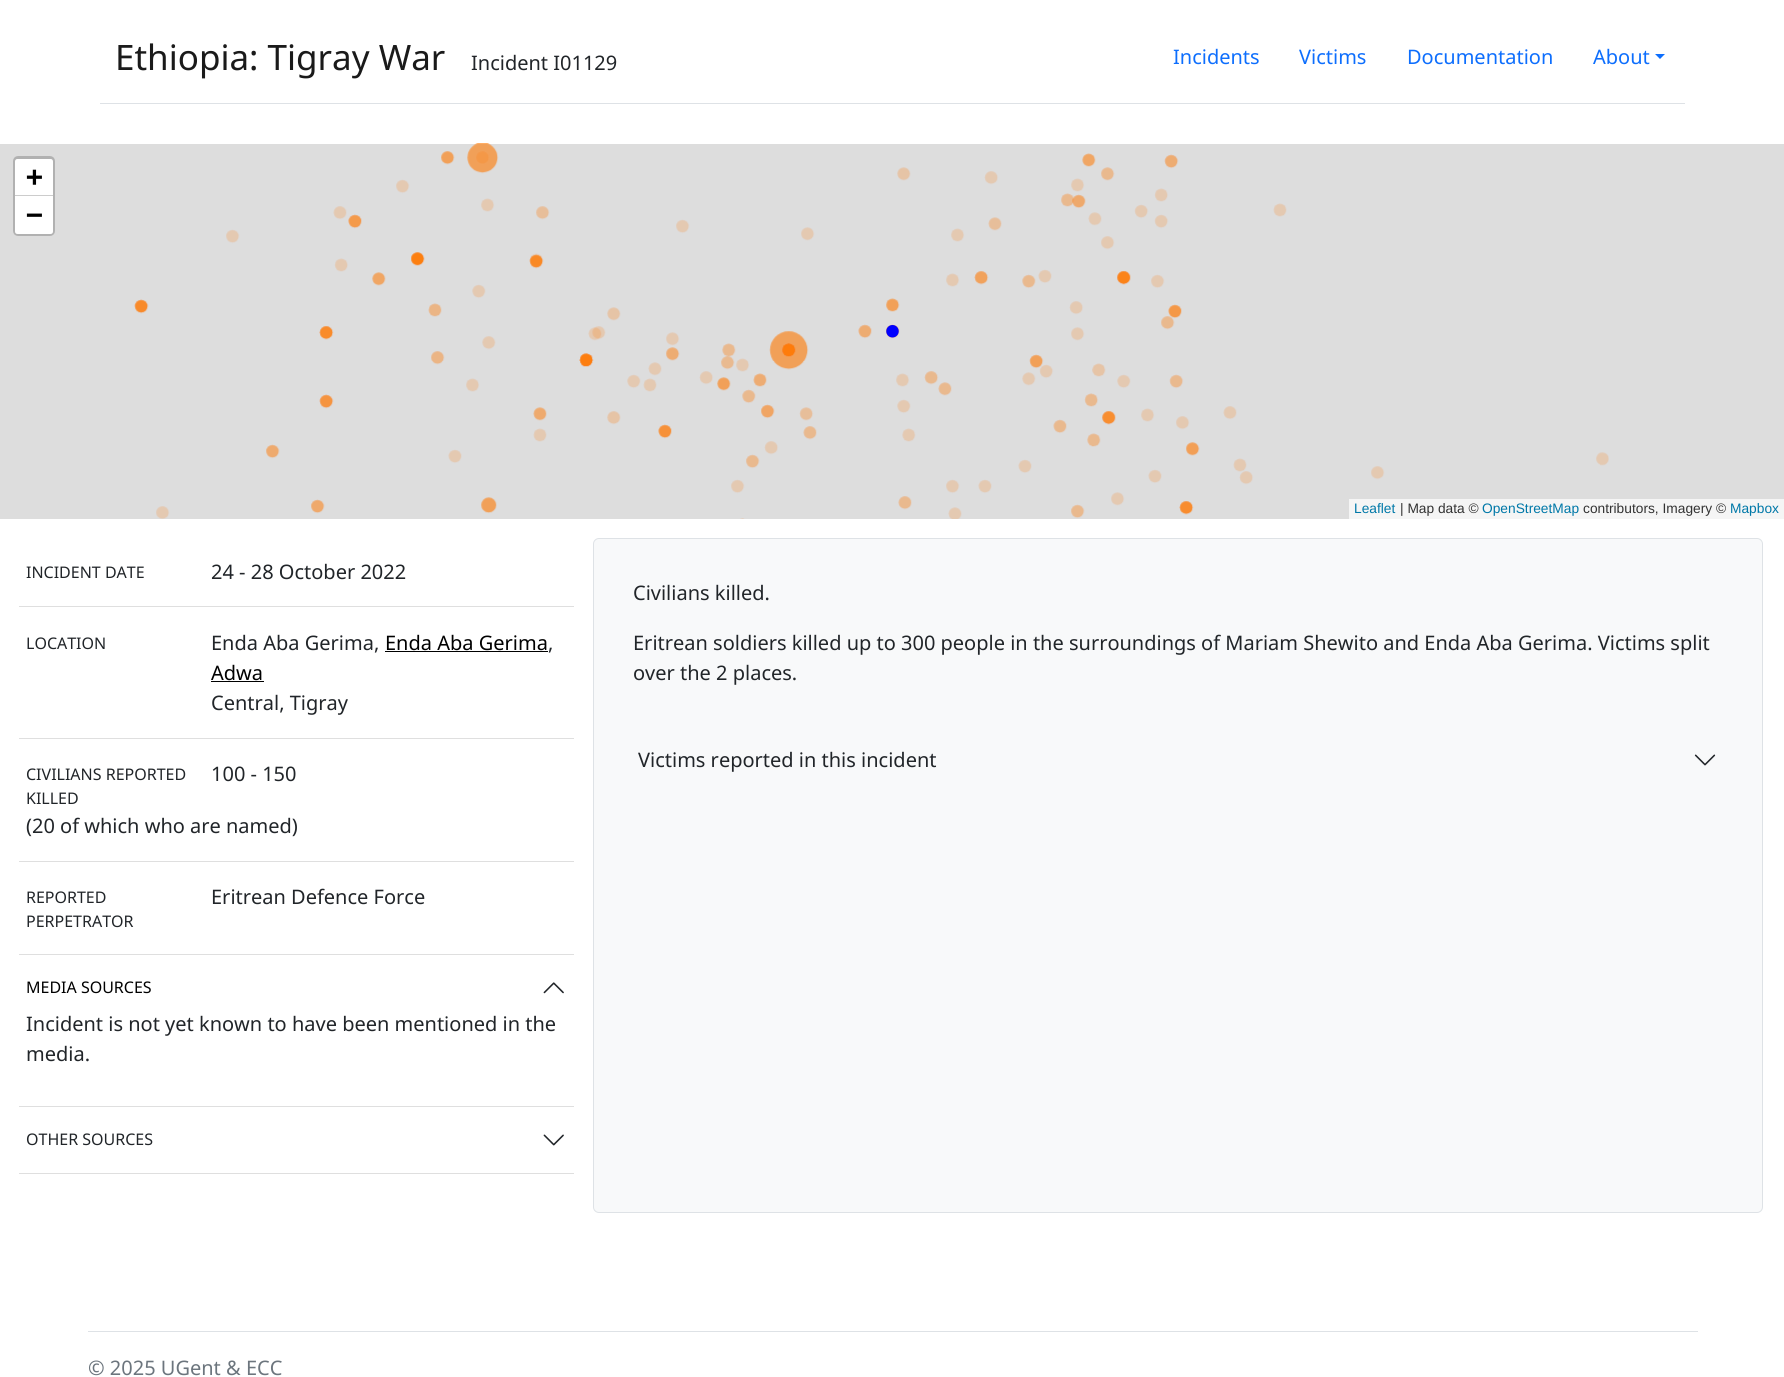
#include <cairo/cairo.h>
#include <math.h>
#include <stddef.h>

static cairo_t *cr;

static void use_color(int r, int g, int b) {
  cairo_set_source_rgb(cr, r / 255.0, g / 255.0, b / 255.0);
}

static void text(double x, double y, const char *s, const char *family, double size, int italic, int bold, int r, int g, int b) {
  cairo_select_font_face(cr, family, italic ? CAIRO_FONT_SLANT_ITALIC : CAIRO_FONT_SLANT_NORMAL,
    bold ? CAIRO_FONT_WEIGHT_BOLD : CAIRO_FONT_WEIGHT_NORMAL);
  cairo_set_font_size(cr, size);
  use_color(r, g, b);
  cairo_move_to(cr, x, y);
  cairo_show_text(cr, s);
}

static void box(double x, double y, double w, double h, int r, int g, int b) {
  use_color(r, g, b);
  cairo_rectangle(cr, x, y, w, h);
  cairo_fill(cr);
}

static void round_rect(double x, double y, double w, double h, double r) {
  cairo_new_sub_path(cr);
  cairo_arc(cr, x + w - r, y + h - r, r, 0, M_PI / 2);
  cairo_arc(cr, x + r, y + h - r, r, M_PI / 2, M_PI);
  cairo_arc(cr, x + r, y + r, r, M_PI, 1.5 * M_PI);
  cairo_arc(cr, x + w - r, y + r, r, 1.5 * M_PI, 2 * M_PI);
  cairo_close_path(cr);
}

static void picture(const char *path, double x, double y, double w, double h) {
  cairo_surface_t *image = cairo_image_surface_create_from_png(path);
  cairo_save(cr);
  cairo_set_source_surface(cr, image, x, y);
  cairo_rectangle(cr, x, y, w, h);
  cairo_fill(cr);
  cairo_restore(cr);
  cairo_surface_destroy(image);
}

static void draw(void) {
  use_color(255, 255, 255);
  cairo_paint(cr);
  box(100, 103, 1585, 1, 222, 226, 230);
  use_color(13, 110, 253);
  cairo_new_path(cr);
  cairo_move_to(cr, 1655, 54);
  cairo_line_to(cr, 1665, 54);
  cairo_line_to(cr, 1660, 59);
  cairo_close_path(cr);
  cairo_fill(cr);
  box(0, 144, 1784, 375, 221, 221, 221);
  picture("img_01.png", 134, 143, 1475, 376);
  picture("img_02.png", 886, 325, 13, 13);
  round_rect(14.5, 157.5, 39, 77, 3.5);
  use_color(177, 177, 177);
  cairo_set_line_width(cr, 3);
  cairo_stroke(cr);
  use_color(255, 255, 255);
  cairo_new_path(cr);
  cairo_move_to(cr, 17.5, 159);
  cairo_line_to(cr, 50.5, 159);
  cairo_curve_to(cr, 52, 159, 53, 160, 53, 161.5);
  cairo_line_to(cr, 53, 196);
  cairo_line_to(cr, 15, 196);
  cairo_line_to(cr, 15, 161.5);
  cairo_curve_to(cr, 15, 160, 16, 159, 17.5, 159);
  cairo_close_path(cr);
  cairo_fill(cr);
  box(15, 195, 38, 1, 204, 204, 204);
  use_color(255, 255, 255);
  cairo_new_path(cr);
  cairo_move_to(cr, 15, 196);
  cairo_line_to(cr, 53, 196);
  cairo_line_to(cr, 53, 231.5);
  cairo_curve_to(cr, 53, 233, 52, 234, 50.5, 234);
  cairo_line_to(cr, 17.5, 234);
  cairo_curve_to(cr, 16, 234, 15, 233, 15, 231.5);
  cairo_close_path(cr);
  cairo_fill(cr);
  box(1349, 499, 435, 20, 245, 245, 245);
  box(19, 606, 555, 1, 223, 223, 223);
  box(19, 738, 555, 1, 223, 223, 223);
  box(385, 651, 163, 1, 0, 0, 0);
  box(211, 681, 53, 1, 0, 0, 0);
  box(19, 861, 555, 1, 223, 223, 223);
  box(19, 954, 555, 1, 223, 223, 223);
  box(19, 1106, 555, 1, 223, 223, 223);
  picture("img_03.png", 543, 982, 21, 12);
  box(19, 1173, 555, 1, 223, 223, 223);
  picture("img_04.png", 543, 1134, 21, 12);
  use_color(248, 249, 250);
  round_rect(593.5, 538.5, 1169, 674, 5.5);
  cairo_fill_preserve(cr);
  use_color(222, 226, 230);
  cairo_set_line_width(cr, 1);
  cairo_stroke(cr);
  picture("img_05.png", 1694, 754, 22, 12);
  box(88, 1331, 1610, 1, 222, 226, 230);
  text(115, 70, "Ethiopia: Tigray War", "Noto Sans", 35, 0, 0, 26, 26, 26);
  text(471, 70, "Incident I01129", "Noto Sans", 20, 0, 0, 33, 37, 41);
  text(1173, 64, "Incidents", "Noto Sans", 20, 0, 0, 13, 110, 253);
  text(1299, 64, "Victims", "Noto Sans", 20, 0, 0, 13, 110, 253);
  text(1407, 64, "Documentation", "Noto Sans", 20, 0, 0, 13, 110, 253);
  text(1593, 64, "About", "Noto Sans", 20, 0, 0, 13, 110, 253);
  text(26, 186, "+", "DejaVu Sans Mono", 28, 0, 1, 0, 0, 0);
  text(26, 224, "−", "DejaVu Sans Mono", 28, 0, 1, 0, 0, 0);
  text(1354, 513, "Leaflet", "Liberation Sans", 13.75, 0, 0, 0, 120, 168);
  text(1400, 513, "| Map data ©", "Liberation Sans", 13.75, 0, 0, 51, 51, 51);
  text(1482, 513, "OpenStreetMap", "Liberation Sans", 13.75, 0, 0, 0, 120, 168);
  text(1583, 513, "contributors, Imagery ©", "Liberation Sans", 13.75, 0, 0, 51, 51, 51);
  text(1730, 513, "Mapbox", "Liberation Sans", 13.75, 0, 0, 0, 120, 168);
  text(26, 578, "INCIDENT DATE", "Noto Sans", 16, 0, 0, 33, 37, 41);
  text(211, 579, "24 - 28 October 2022", "Noto Sans", 20, 0, 0, 33, 37, 41);
  text(26, 649, "LOCATION", "Noto Sans", 16, 0, 0, 33, 37, 41);
  text(211, 650, "Enda Aba Gerima,", "Noto Sans", 20, 0, 0, 33, 37, 41);
  text(385, 650, "Enda Aba Gerima", "Noto Sans", 20, 0, 0, 0, 0, 0);
  text(548, 650, ",", "Noto Sans", 20, 0, 0, 33, 37, 41);
  text(211, 680, "Adwa", "Noto Sans", 20, 0, 0, 0, 0, 0);
  text(211, 710, "Central, Tigray", "Noto Sans", 20, 0, 0, 33, 37, 41);
  text(26, 780, "CIVILIANS REPORTED", "Noto Sans", 16, 0, 0, 33, 37, 41);
  text(26, 804, "KILLED", "Noto Sans", 16, 0, 0, 33, 37, 41);
  text(211, 781, "100 - 150", "Noto Sans", 20, 0, 0, 33, 37, 41);
  text(26, 833, "(20 of which who are named)", "Noto Sans", 20, 0, 0, 33, 37, 41);
  text(26, 903, "REPORTED", "Noto Sans", 16, 0, 0, 33, 37, 41);
  text(26, 927, "PERPETRATOR", "Noto Sans", 16, 0, 0, 33, 37, 41);
  text(211, 904, "Eritrean Defence Force", "Noto Sans", 20, 0, 0, 33, 37, 41);
  text(26, 993, "MEDIA SOURCES", "Noto Sans", 16, 0, 0, 0, 0, 0);
  text(26, 1031, "Incident is not yet known to have been mentioned in the", "Noto Sans", 20, 0, 0, 33, 37, 41);
  text(26, 1061, "media.", "Noto Sans", 20, 0, 0, 33, 37, 41);
  text(26, 1145, "OTHER SOURCES", "Noto Sans", 16, 0, 0, 33, 37, 41);
  text(633, 600, "Civilians killed.", "Noto Sans", 20, 0, 0, 33, 37, 41);
  text(633, 650, "Eritrean soldiers killed up to 300 people in the surroundings of Mariam Shewito and Enda Aba Gerima. Victims split", "Noto Sans", 20, 0, 0, 33, 37, 41);
  text(633, 680, "over the 2 places.", "Noto Sans", 20, 0, 0, 33, 37, 41);
  text(638, 767, "Victims reported in this incident", "Noto Sans", 20, 0, 0, 33, 37, 41);
  text(88, 1375, "© 2025 UGent & ECC", "Noto Sans", 20, 0, 0, 108, 117, 125);
}

int main(void) {
  cairo_surface_t *surface = cairo_image_surface_create(CAIRO_FORMAT_RGB24, 1784, 1377);
  cr = cairo_create(surface);
  cairo_font_options_t *options = cairo_font_options_create();
  cairo_font_options_set_hint_metrics(options, CAIRO_HINT_METRICS_OFF);
  cairo_font_options_set_hint_style(options, CAIRO_HINT_STYLE_NONE);
  cairo_set_font_options(cr, options);
  cairo_set_miter_limit(cr, 4);
  draw();
  cairo_surface_write_to_png(surface, "out.png");
  cairo_font_options_destroy(options);
  cairo_destroy(cr);
  cairo_surface_destroy(surface);
  return 0;
}
